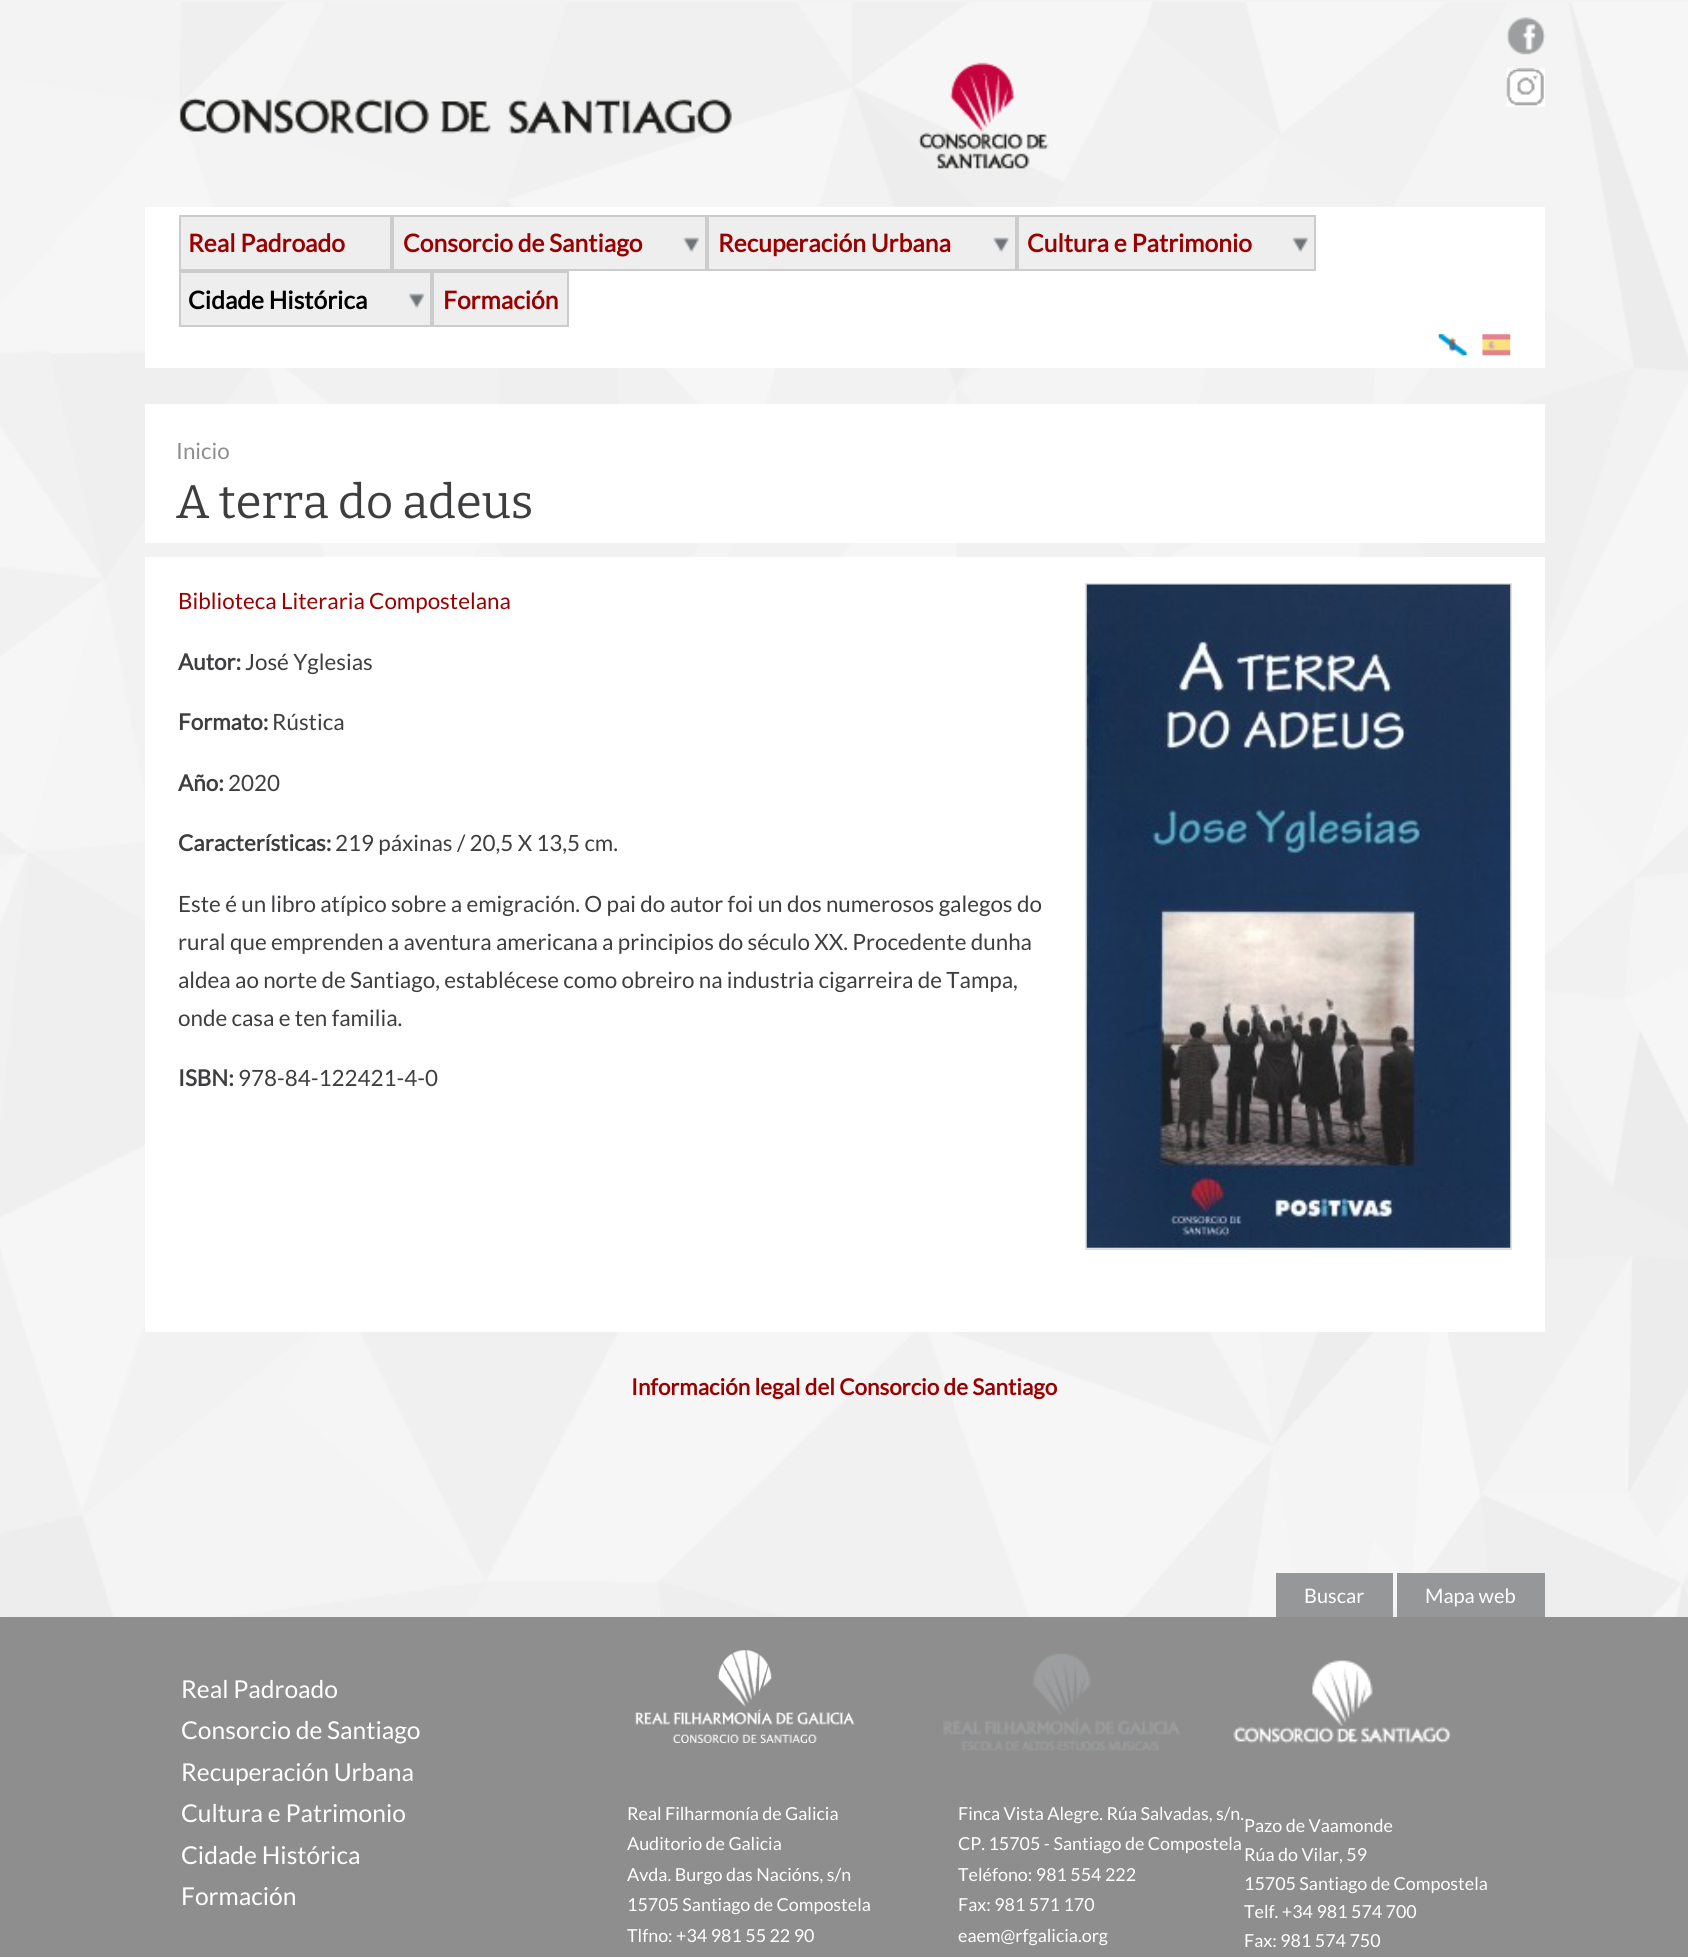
#include <cairo/cairo.h>
#include <math.h>
#include <stddef.h>

static cairo_t *cr;

static void use_color(int r, int g, int b) {
  cairo_set_source_rgb(cr, r / 255.0, g / 255.0, b / 255.0);
}

static void text(double x, double y, const char *s, const char *family, double size, int italic, int bold, int r, int g, int b) {
  cairo_select_font_face(cr, family, italic ? CAIRO_FONT_SLANT_ITALIC : CAIRO_FONT_SLANT_NORMAL,
    bold ? CAIRO_FONT_WEIGHT_BOLD : CAIRO_FONT_WEIGHT_NORMAL);
  cairo_set_font_size(cr, size);
  use_color(r, g, b);
  cairo_move_to(cr, x, y);
  cairo_show_text(cr, s);
}

static void box(double x, double y, double w, double h, int r, int g, int b) {
  use_color(r, g, b);
  cairo_rectangle(cr, x, y, w, h);
  cairo_fill(cr);
}

static void picture(const char *path, double x, double y, double w, double h) {
  cairo_surface_t *image = cairo_image_surface_create_from_png(path);
  cairo_save(cr);
  cairo_set_source_surface(cr, image, x, y);
  cairo_rectangle(cr, x, y, w, h);
  cairo_fill(cr);
  cairo_restore(cr);
  cairo_surface_destroy(image);
}

static void draw(void) {
  use_color(243, 243, 243);
  cairo_paint(cr);
  picture("img_01.png", 0, 2, 1688, 1615);
  picture("img_02.png", 179, 62, 870, 107);
  picture("img_03.png", 1506, 17, 40, 38);
  picture("img_04.png", 1506, 68, 39, 39);
  box(145, 207, 1400, 161, 255, 255, 255);
  use_color(238, 238, 238);
  cairo_rectangle(cr, 180, 216, 211, 54);
  cairo_fill_preserve(cr);
  use_color(204, 204, 204);
  cairo_stroke(cr);
  box(394, 217, 311, 52, 238, 238, 238);
  picture("img_05.png", 682, 237, 18, 16);
  cairo_rectangle(cr, 393, 216, 313, 54);
  use_color(204, 204, 204);
  cairo_stroke(cr);
  box(709, 217, 306, 52, 238, 238, 238);
  picture("img_06.png", 992, 237, 18, 16);
  cairo_rectangle(cr, 708, 216, 308, 54);
  use_color(204, 204, 204);
  cairo_stroke(cr);
  box(1019, 217, 295, 52, 238, 238, 238);
  picture("img_07.png", 1291, 237, 18, 16);
  cairo_rectangle(cr, 1018, 216, 297, 54);
  use_color(204, 204, 204);
  cairo_stroke(cr);
  box(181, 273, 249, 52, 238, 238, 238);
  picture("img_08.png", 408, 293, 18, 16);
  cairo_rectangle(cr, 180, 272, 251, 54);
  use_color(204, 204, 204);
  cairo_stroke(cr);
  use_color(238, 238, 238);
  cairo_rectangle(cr, 433, 272, 135, 54);
  cairo_fill_preserve(cr);
  use_color(204, 204, 204);
  cairo_stroke(cr);
  picture("img_09.png", 1438, 334, 29, 22);
  picture("img_10.png", 1482, 334, 29, 22);
  box(145, 404, 1400, 139, 255, 255, 255);
  box(145, 557, 1400, 775, 255, 255, 255);
  cairo_rectangle(cr, 1086, 584, 425, 665);
  use_color(224, 224, 224);
  cairo_stroke(cr);
  picture("img_11.png", 1086, 584, 425, 664);
  box(1276, 1573, 117, 44, 150, 151, 152);
  box(1397, 1573, 148, 44, 150, 151, 152);
  box(0, 1617, 1688, 340, 142, 142, 143);
  picture("img_12.png", 635, 1650, 220, 93);
  picture("img_13.png", 943, 1653, 237, 98);
  picture("img_14.png", 1233, 1660, 218, 84);
  text(188, 252, "Real Padroado", "Lato", 24.6, 0, 1, 155, 0, 0);
  text(403, 252, "Consorcio de Santiago", "Lato", 24.6, 0, 1, 155, 0, 0);
  text(718, 252, "Recuperación Urbana", "Lato", 24.6, 0, 1, 155, 0, 0);
  text(1027, 252, "Cultura e Patrimonio", "Lato", 24.6, 0, 1, 155, 0, 0);
  text(188, 309, "Cidade Histórica", "Lato", 24.6, 0, 1, 0, 0, 0);
  text(443, 309, "Formación", "Lato", 24.6, 0, 1, 155, 0, 0);
  text(176, 459, "Inicio", "Lato", 22.4, 0, 0, 142, 142, 143);
  text(176, 518, "A terra do adeus", "Bitter", 47, 0, 0, 62, 61, 64);
  text(178, 609, "Biblioteca Literaria Compostelana", "Lato", 22.4, 0, 0, 155, 0, 0);
  text(178, 670, "Autor:", "Lato", 22.4, 0, 1, 62, 61, 64);
  text(245, 670, "José Yglesias", "Lato", 22.4, 0, 0, 62, 61, 64);
  text(178, 730, "Formato:", "Lato", 22.4, 0, 1, 62, 61, 64);
  text(272, 730, "Rústica", "Lato", 22.4, 0, 0, 62, 61, 64);
  text(178, 791, "Año:", "Lato", 22.4, 0, 1, 62, 61, 64);
  text(228, 791, "2020", "Lato", 22.4, 0, 0, 62, 61, 64);
  text(178, 851, "Características:", "Lato", 22.4, 0, 1, 62, 61, 64);
  text(335, 851, "219 páxinas / 20,5 X 13,5 cm.", "Lato", 22.4, 0, 0, 62, 61, 64);
  text(178, 912, "Este é un libro atípico sobre a emigración. O pai do autor foi un dos numerosos galegos do", "Lato", 22.4, 0, 0, 62, 61, 64);
  text(178, 950, "rural que emprenden a aventura americana a principios do século XX. Procedente dunha", "Lato", 22.4, 0, 0, 62, 61, 64);
  text(178, 988, "aldea ao norte de Santiago, establécese como obreiro na industria cigarreira de Tampa,", "Lato", 22.4, 0, 0, 62, 61, 64);
  text(178, 1026, "onde casa e ten familia.", "Lato", 22.4, 0, 0, 62, 61, 64);
  text(178, 1086, "ISBN:", "Lato", 22.4, 0, 1, 62, 61, 64);
  text(238, 1086, "978-84-122421-4-0", "Lato", 22.4, 0, 0, 62, 61, 64);
  text(631, 1395, "Información legal del Consorcio de Santiago", "Lato", 22.4, 0, 1, 155, 0, 0);
  text(1304, 1603, "Buscar", "Lato", 20, 0, 0, 255, 255, 255);
  text(1425, 1603, "Mapa web", "Lato", 20, 0, 0, 255, 255, 255);
  text(181, 1698, "Real Padroado", "Lato", 24.6, 0, 0, 255, 255, 255);
  text(181, 1739, "Consorcio de Santiago", "Lato", 24.6, 0, 0, 255, 255, 255);
  text(181, 1781, "Recuperación Urbana", "Lato", 24.6, 0, 0, 255, 255, 255);
  text(181, 1822, "Cultura e Patrimonio", "Lato", 24.6, 0, 0, 255, 255, 255);
  text(181, 1864, "Cidade Histórica", "Lato", 24.6, 0, 0, 255, 255, 255);
  text(181, 1905, "Formación", "Lato", 24.6, 0, 0, 255, 255, 255);
  text(627, 1820, "Real Filharmonía de Galicia", "Lato", 17.9, 0, 0, 255, 255, 255);
  text(627, 1850, "Auditorio de Galicia", "Lato", 17.9, 0, 0, 255, 255, 255);
  text(627, 1881, "Avda. Burgo das Nacións, s/n", "Lato", 17.9, 0, 0, 255, 255, 255);
  text(627, 1911, "15705 Santiago de Compostela", "Lato", 17.9, 0, 0, 255, 255, 255);
  text(627, 1942, "Tlfno: +34 981 55 22 90", "Lato", 17.9, 0, 0, 255, 255, 255);
  text(958, 1820, "Finca Vista Alegre. Rúa Salvadas, s/n.", "Lato", 17.9, 0, 0, 255, 255, 255);
  text(958, 1850, "CP. 15705 - Santiago de Compostela", "Lato", 17.9, 0, 0, 255, 255, 255);
  text(958, 1881, "Teléfono: 981 554 222", "Lato", 17.9, 0, 0, 255, 255, 255);
  text(958, 1911, "Fax: 981 571 170", "Lato", 17.9, 0, 0, 255, 255, 255);
  text(958, 1942, "eaem@rfgalicia.org", "Lato", 17.9, 0, 0, 255, 255, 255);
  text(1244, 1832, "Pazo de Vaamonde", "Lato", 17.9, 0, 0, 255, 255, 255);
  text(1244, 1861, "Rúa do Vilar, 59", "Lato", 17.9, 0, 0, 255, 255, 255);
  text(1244, 1890, "15705 Santiago de Compostela", "Lato", 17.9, 0, 0, 255, 255, 255);
  text(1244, 1918, "Telf. +34 981 574 700", "Lato", 17.9, 0, 0, 255, 255, 255);
  text(1244, 1947, "Fax: 981 574 750", "Lato", 17.9, 0, 0, 255, 255, 255);
}

int main(void) {
  cairo_surface_t *surface = cairo_image_surface_create(CAIRO_FORMAT_RGB24, 1688, 1957);
  cr = cairo_create(surface);
  cairo_font_options_t *options = cairo_font_options_create();
  cairo_font_options_set_hint_metrics(options, CAIRO_HINT_METRICS_OFF);
  cairo_font_options_set_hint_style(options, CAIRO_HINT_STYLE_NONE);
  cairo_set_font_options(cr, options);
  cairo_set_miter_limit(cr, 4);
  draw();
  cairo_surface_write_to_png(surface, "out.png");
  cairo_font_options_destroy(options);
  cairo_destroy(cr);
  cairo_surface_destroy(surface);
  return 0;
}
